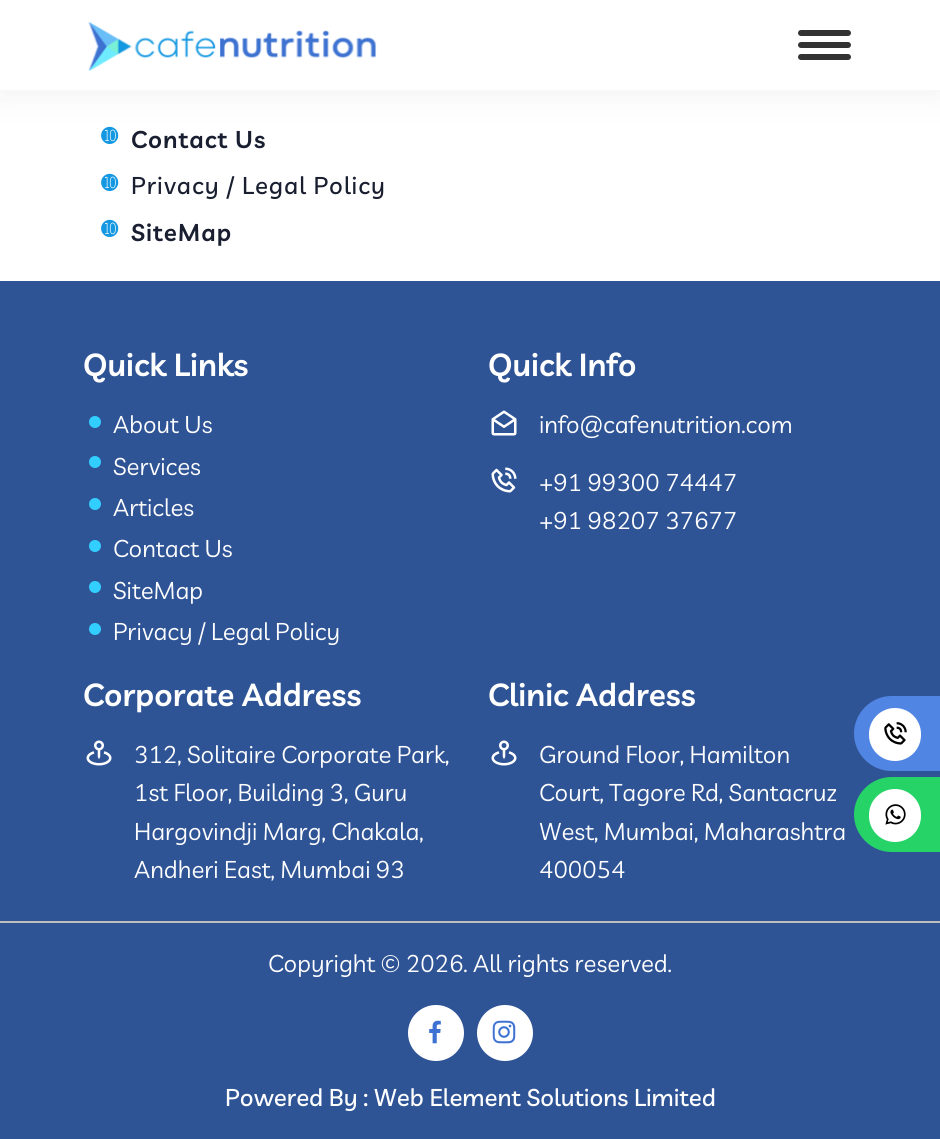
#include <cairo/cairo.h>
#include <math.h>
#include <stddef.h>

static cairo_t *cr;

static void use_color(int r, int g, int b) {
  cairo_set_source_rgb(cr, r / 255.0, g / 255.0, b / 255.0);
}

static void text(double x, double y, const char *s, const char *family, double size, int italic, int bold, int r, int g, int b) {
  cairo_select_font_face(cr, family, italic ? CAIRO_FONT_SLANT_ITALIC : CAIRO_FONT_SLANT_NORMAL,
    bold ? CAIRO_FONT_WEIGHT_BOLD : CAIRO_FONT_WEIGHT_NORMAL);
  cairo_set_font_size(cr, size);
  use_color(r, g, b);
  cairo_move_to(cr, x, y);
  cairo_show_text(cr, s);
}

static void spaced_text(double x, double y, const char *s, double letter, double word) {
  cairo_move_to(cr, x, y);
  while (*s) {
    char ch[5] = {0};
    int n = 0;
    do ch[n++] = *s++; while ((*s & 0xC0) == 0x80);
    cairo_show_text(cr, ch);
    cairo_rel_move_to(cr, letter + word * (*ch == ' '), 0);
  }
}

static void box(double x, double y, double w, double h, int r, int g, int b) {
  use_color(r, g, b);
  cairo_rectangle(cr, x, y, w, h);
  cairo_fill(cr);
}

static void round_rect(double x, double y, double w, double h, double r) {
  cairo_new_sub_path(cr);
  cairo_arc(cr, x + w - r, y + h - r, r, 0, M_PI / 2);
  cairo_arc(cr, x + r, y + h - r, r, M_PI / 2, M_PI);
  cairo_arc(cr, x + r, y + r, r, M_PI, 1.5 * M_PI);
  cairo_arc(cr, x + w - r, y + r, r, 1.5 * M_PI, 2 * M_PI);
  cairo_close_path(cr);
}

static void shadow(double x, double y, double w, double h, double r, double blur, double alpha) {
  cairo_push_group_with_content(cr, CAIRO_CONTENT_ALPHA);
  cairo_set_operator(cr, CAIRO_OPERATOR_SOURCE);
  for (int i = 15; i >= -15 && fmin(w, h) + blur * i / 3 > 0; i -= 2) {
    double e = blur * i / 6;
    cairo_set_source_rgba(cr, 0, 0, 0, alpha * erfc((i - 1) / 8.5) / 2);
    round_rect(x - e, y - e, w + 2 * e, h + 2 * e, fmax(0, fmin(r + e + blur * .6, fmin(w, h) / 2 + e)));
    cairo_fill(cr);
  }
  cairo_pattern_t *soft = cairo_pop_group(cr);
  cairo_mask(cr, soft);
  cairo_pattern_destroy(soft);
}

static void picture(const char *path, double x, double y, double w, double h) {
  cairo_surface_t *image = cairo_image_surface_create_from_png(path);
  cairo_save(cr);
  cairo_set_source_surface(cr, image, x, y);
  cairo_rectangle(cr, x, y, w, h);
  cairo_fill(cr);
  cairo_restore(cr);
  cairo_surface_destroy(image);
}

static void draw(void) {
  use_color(255, 255, 255);
  cairo_paint(cr);
  use_color(0, 0, 0);
  shadow(0, 3, 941, 90, 0, 21, 0.06);
  box(0, 0, 940, 90, 255, 255, 255);
  picture("img_01.png", 88, 22, 289, 49);
  use_color(51, 51, 51);
  round_rect(798, 30, 53, 6, 3);
  cairo_fill(cr);
  round_rect(798, 42, 53, 6, 3);
  cairo_fill(cr);
  round_rect(798, 54, 53, 6, 3);
  cairo_fill(cr);
  box(0, 281, 940, 858, 47, 84, 150);
  use_color(50, 206, 255);
  cairo_arc(cr, 95, 422, 6, 0, 2 * M_PI);
  cairo_fill(cr);
  cairo_arc(cr, 95, 462, 6, 0, 2 * M_PI);
  cairo_fill(cr);
  cairo_arc(cr, 95, 504, 6, 0, 2 * M_PI);
  cairo_fill(cr);
  cairo_arc(cr, 95, 546, 6, 0, 2 * M_PI);
  cairo_fill(cr);
  cairo_arc(cr, 95, 587, 6, 0, 2 * M_PI);
  cairo_fill(cr);
  cairo_arc(cr, 95, 629, 6, 0, 2 * M_PI);
  cairo_fill(cr);
  picture("img_02.png", 491, 410, 26, 26);
  picture("img_03.png", 491, 467, 26, 26);
  picture("img_04.png", 86, 740, 26, 26);
  picture("img_04.png", 491, 740, 26, 26);
  box(0, 921, 940, 2, 191, 191, 191);
  use_color(255, 255, 255);
  cairo_arc(cr, 436, 1033, 28, 0, 2 * M_PI);
  cairo_fill(cr);
  picture("img_05.png", 429, 1020, 12, 24);
  cairo_arc(cr, 505, 1033, 28, 0, 2 * M_PI);
  cairo_fill(cr);
  picture("img_06.png", 492, 1020, 24, 24);
  use_color(81, 133, 227);
  cairo_new_path(cr);
  cairo_move_to(cr, 891.5, 696);
  cairo_line_to(cr, 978, 696);
  cairo_line_to(cr, 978, 771);
  cairo_line_to(cr, 891.5, 771);
  cairo_curve_to(cr, 871, 771, 854, 754, 854, 733.5);
  cairo_curve_to(cr, 854, 713, 871, 696, 891.5, 696);
  cairo_close_path(cr);
  cairo_fill(cr);
  use_color(255, 255, 255);
  round_rect(869, 708, 52, 53, 26);
  cairo_fill(cr);
  picture("img_07.png", 884, 722, 23, 23);
  use_color(37, 211, 102);
  cairo_new_path(cr);
  cairo_move_to(cr, 891.5, 777);
  cairo_line_to(cr, 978, 777);
  cairo_line_to(cr, 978, 852);
  cairo_line_to(cr, 891.5, 852);
  cairo_curve_to(cr, 871, 852, 854, 835, 854, 814.5);
  cairo_curve_to(cr, 854, 794, 871, 777, 891.5, 777);
  cairo_close_path(cr);
  cairo_fill(cr);
  use_color(255, 255, 255);
  round_rect(869, 789, 52, 53, 26);
  cairo_fill(cr);
  picture("img_08.png", 885, 804, 21, 21);
  text(101, 143, "➓", "DejaVu Sans", 20, 0, 1, 20, 152, 226);
  cairo_select_font_face(cr, "Livvic SemiBold", CAIRO_FONT_SLANT_NORMAL, CAIRO_FONT_WEIGHT_NORMAL);
  cairo_set_font_size(cr, 24);
  use_color(25, 31, 48);
  spaced_text(131, 148, "Contact Us", 1, 0);
  text(101, 190, "➓", "DejaVu Sans", 20, 0, 1, 20, 152, 226);
  cairo_select_font_face(cr, "Livvic Medium", CAIRO_FONT_SLANT_NORMAL, CAIRO_FONT_WEIGHT_NORMAL);
  cairo_set_font_size(cr, 24);
  use_color(25, 31, 48);
  spaced_text(131, 194, "Privacy / Legal Policy", 1, 0);
  text(101, 236, "➓", "DejaVu Sans", 20, 0, 1, 20, 152, 226);
  cairo_select_font_face(cr, "Livvic SemiBold", CAIRO_FONT_SLANT_NORMAL, CAIRO_FONT_WEIGHT_NORMAL);
  cairo_set_font_size(cr, 24);
  use_color(25, 31, 48);
  spaced_text(131, 241, "SiteMap", 1, 0);
  text(83, 376, "Quick Links", "Livvic SemiBold", 31.5, 0, 0, 255, 255, 255);
  text(113, 433, "About Us", "Livvic", 24, 0, 0, 255, 255, 255);
  text(113, 475, "Services", "Livvic", 24, 0, 0, 255, 255, 255);
  text(113, 516, "Articles", "Livvic", 24, 0, 0, 255, 255, 255);
  text(113, 557, "Contact Us", "Livvic", 24, 0, 0, 255, 255, 255);
  text(113, 599, "SiteMap", "Livvic", 24, 0, 0, 255, 255, 255);
  text(113, 640, "Privacy / Legal Policy", "Livvic", 24, 0, 0, 255, 255, 255);
  text(488, 376, "Quick Info", "Livvic SemiBold", 31.5, 0, 0, 255, 255, 255);
  text(539, 433, "info@cafenutrition.com", "Livvic", 24, 0, 0, 255, 255, 255);
  text(539, 491, "+91 99300 74447", "Livvic", 24, 0, 0, 255, 255, 255);
  text(539, 529, "+91 98207 37677", "Livvic", 24, 0, 0, 255, 255, 255);
  text(83, 706, "Corporate Address", "Livvic SemiBold", 31.5, 0, 0, 255, 255, 255);
  text(134, 763, "312, Solitaire Corporate Park,", "Livvic", 24, 0, 0, 255, 255, 255);
  text(134, 801, "1st Floor, Building 3, Guru", "Livvic", 24, 0, 0, 255, 255, 255);
  text(134, 840, "Hargovindji Marg, Chakala,", "Livvic", 24, 0, 0, 255, 255, 255);
  text(134, 878, "Andheri East, Mumbai 93", "Livvic", 24, 0, 0, 255, 255, 255);
  text(488, 706, "Clinic Address", "Livvic SemiBold", 31.5, 0, 0, 255, 255, 255);
  text(539, 763, "Ground Floor, Hamilton", "Livvic", 24, 0, 0, 255, 255, 255);
  text(539, 801, "Court, Tagore Rd, Santacruz", "Livvic", 24, 0, 0, 255, 255, 255);
  text(539, 840, "West, Mumbai, Maharashtra", "Livvic", 24, 0, 0, 255, 255, 255);
  text(539, 878, "400054", "Livvic", 24, 0, 0, 255, 255, 255);
  text(268, 972, "Copyright © 2026. All rights reserved.", "Livvic", 24, 0, 0, 255, 255, 255);
  text(225, 1106, "Powered By : Web Element Solutions Limited", "Livvic Medium", 24, 0, 0, 255, 255, 255);
}

int main(void) {
  cairo_surface_t *surface = cairo_image_surface_create(CAIRO_FORMAT_RGB24, 940, 1139);
  cr = cairo_create(surface);
  cairo_font_options_t *options = cairo_font_options_create();
  cairo_font_options_set_hint_metrics(options, CAIRO_HINT_METRICS_OFF);
  cairo_font_options_set_hint_style(options, CAIRO_HINT_STYLE_NONE);
  cairo_set_font_options(cr, options);
  cairo_set_miter_limit(cr, 4);
  draw();
  cairo_surface_write_to_png(surface, "out.png");
  cairo_font_options_destroy(options);
  cairo_destroy(cr);
  cairo_surface_destroy(surface);
  return 0;
}
